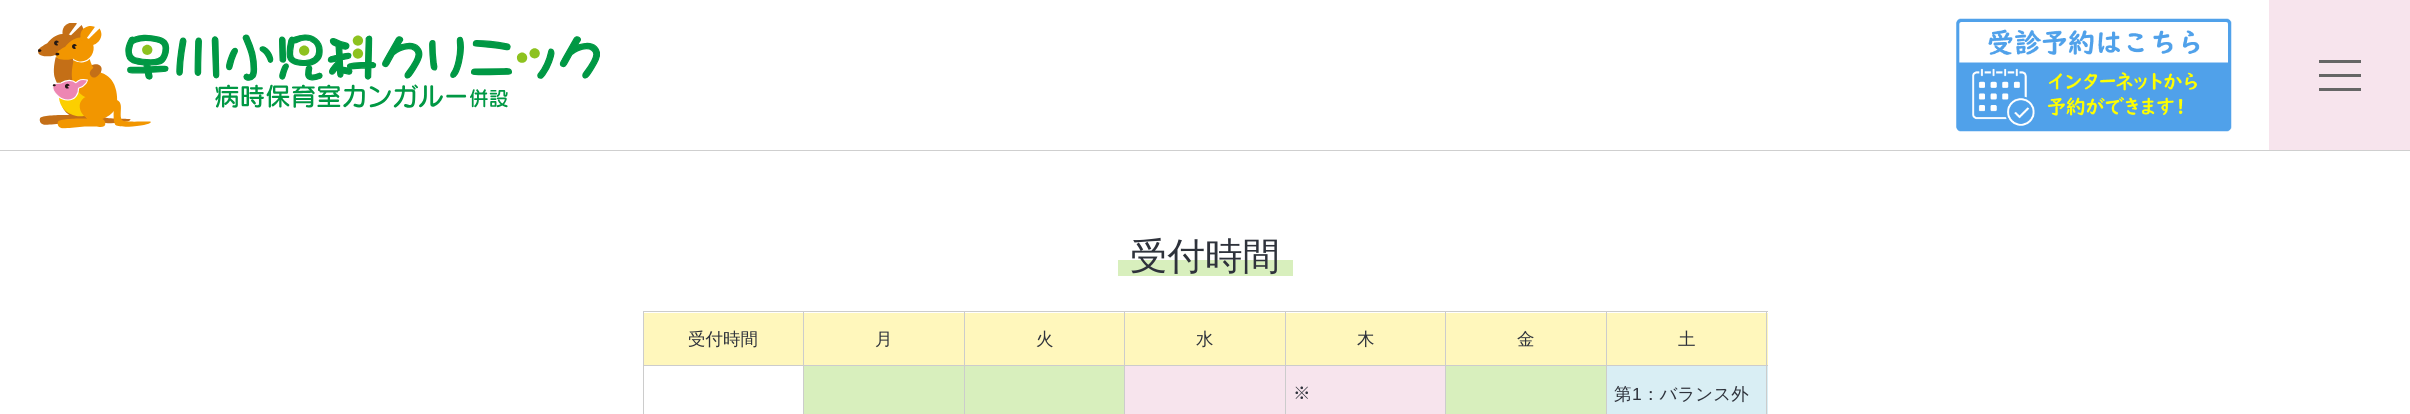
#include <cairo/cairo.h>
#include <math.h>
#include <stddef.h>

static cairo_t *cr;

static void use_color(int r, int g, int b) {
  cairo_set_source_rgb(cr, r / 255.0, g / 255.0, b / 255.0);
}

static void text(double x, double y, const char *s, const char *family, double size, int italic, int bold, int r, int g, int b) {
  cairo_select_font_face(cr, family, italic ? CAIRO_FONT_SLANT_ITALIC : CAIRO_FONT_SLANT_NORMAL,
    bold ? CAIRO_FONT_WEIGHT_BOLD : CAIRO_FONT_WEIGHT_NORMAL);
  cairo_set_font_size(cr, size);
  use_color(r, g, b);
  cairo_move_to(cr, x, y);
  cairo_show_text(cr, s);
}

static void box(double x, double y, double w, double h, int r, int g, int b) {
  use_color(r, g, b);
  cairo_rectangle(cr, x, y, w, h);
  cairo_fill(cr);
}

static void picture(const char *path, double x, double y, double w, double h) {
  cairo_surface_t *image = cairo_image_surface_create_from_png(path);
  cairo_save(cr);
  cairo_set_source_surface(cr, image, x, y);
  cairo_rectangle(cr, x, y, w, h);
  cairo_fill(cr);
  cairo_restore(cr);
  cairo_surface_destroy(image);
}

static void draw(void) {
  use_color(255, 255, 255);
  cairo_paint(cr);
  box(0, 150, 2410, 1, 207, 207, 207);
  picture("img_01.png", 38, 23, 562, 106);
  picture("img_02.png", 1956, 18, 276, 114);
  box(2269, 0, 141, 150, 247, 228, 237);
  box(2319, 60, 42, 3, 102, 102, 102);
  box(2319, 74, 42, 3, 102, 102, 102);
  box(2319, 88, 42, 3, 102, 102, 102);
  box(1118, 260, 175, 16, 216, 239, 189);
  box(644, 313, 159, 52, 255, 247, 188);
  box(1606, 311, 162, 1, 204, 204, 204);
  box(1606, 365, 162, 1, 204, 204, 204);
  box(1606, 365, 1, 49, 204, 204, 204);
  box(1445, 365, 163, 1, 204, 204, 204);
  box(1606, 311, 1, 55, 204, 204, 204);
  box(1445, 311, 163, 1, 204, 204, 204);
  box(1445, 365, 1, 49, 204, 204, 204);
  box(1285, 365, 161, 1, 204, 204, 204);
  box(1445, 311, 1, 55, 204, 204, 204);
  box(1285, 311, 161, 1, 204, 204, 204);
  box(1285, 365, 1, 49, 204, 204, 204);
  box(1124, 365, 162, 1, 204, 204, 204);
  box(1285, 311, 1, 55, 204, 204, 204);
  box(1124, 311, 162, 1, 204, 204, 204);
  box(1124, 365, 1, 49, 204, 204, 204);
  box(964, 365, 161, 1, 204, 204, 204);
  box(1124, 311, 1, 55, 204, 204, 204);
  box(964, 311, 161, 1, 204, 204, 204);
  box(964, 365, 1, 49, 204, 204, 204);
  box(803, 365, 162, 1, 204, 204, 204);
  box(964, 311, 1, 55, 204, 204, 204);
  box(803, 311, 162, 1, 204, 204, 204);
  box(803, 365, 1, 49, 204, 204, 204);
  box(643, 365, 161, 1, 204, 204, 204);
  box(803, 311, 1, 55, 204, 204, 204);
  box(643, 311, 161, 1, 204, 204, 204);
  box(643, 365, 1, 49, 204, 204, 204);
  box(643, 311, 1, 55, 204, 204, 204);
  box(804, 313, 160, 52, 255, 247, 188);
  box(965, 313, 159, 52, 255, 247, 188);
  box(1125, 313, 160, 52, 255, 247, 188);
  box(1286, 313, 159, 52, 255, 247, 188);
  box(1446, 313, 160, 52, 255, 247, 188);
  box(1607, 313, 161, 52, 255, 247, 188);
  box(1607, 366, 161, 48, 217, 238, 244);
  box(1766, 365, 1, 49, 204, 204, 204);
  box(1766, 311, 1, 55, 204, 204, 204);
  box(804, 366, 160, 48, 216, 239, 189);
  box(965, 366, 159, 48, 216, 239, 189);
  box(1125, 366, 160, 48, 247, 228, 237);
  box(1286, 366, 159, 48, 247, 228, 237);
  box(1446, 366, 160, 48, 216, 239, 189);
  text(1130, 269, "受付時間", "WenQuanYi Zen Hei Medium", 37.5, 0, 0, 46, 50, 59);
  text(688, 345, "受付時間", "WenQuanYi Zen Hei Medium", 17.5, 0, 0, 46, 50, 59);
  text(875, 345, "月", "WenQuanYi Zen Hei Medium", 17.5, 0, 0, 46, 50, 59);
  text(1036, 345, "火", "WenQuanYi Zen Hei Medium", 17.5, 0, 0, 46, 50, 59);
  text(1196, 345, "水", "WenQuanYi Zen Hei Medium", 17.5, 0, 0, 46, 50, 59);
  text(1357, 345, "木", "WenQuanYi Zen Hei Medium", 17.5, 0, 0, 46, 50, 59);
  text(1517, 345, "金", "WenQuanYi Zen Hei Medium", 17.5, 0, 0, 46, 50, 59);
  text(1678, 345, "土", "WenQuanYi Zen Hei Medium", 17.5, 0, 0, 46, 50, 59);
  text(1293, 399, "※", "WenQuanYi Zen Hei Medium", 17.5, 0, 0, 46, 50, 59);
  text(1614, 400, "第", "WenQuanYi Zen Hei Medium", 17.5, 0, 0, 46, 50, 59);
  text(1632, 400, "1", "Liberation Sans", 17.5, 0, 0, 46, 50, 59);
  text(1642, 400, "：バランス外", "WenQuanYi Zen Hei Medium", 17.5, 0, 0, 46, 50, 59);
}

int main(void) {
  cairo_surface_t *surface = cairo_image_surface_create(CAIRO_FORMAT_RGB24, 2410, 414);
  cr = cairo_create(surface);
  cairo_font_options_t *options = cairo_font_options_create();
  cairo_font_options_set_hint_metrics(options, CAIRO_HINT_METRICS_OFF);
  cairo_font_options_set_hint_style(options, CAIRO_HINT_STYLE_NONE);
  cairo_set_font_options(cr, options);
  cairo_set_miter_limit(cr, 4);
  draw();
  cairo_surface_write_to_png(surface, "out.png");
  cairo_font_options_destroy(options);
  cairo_destroy(cr);
  cairo_surface_destroy(surface);
  return 0;
}
